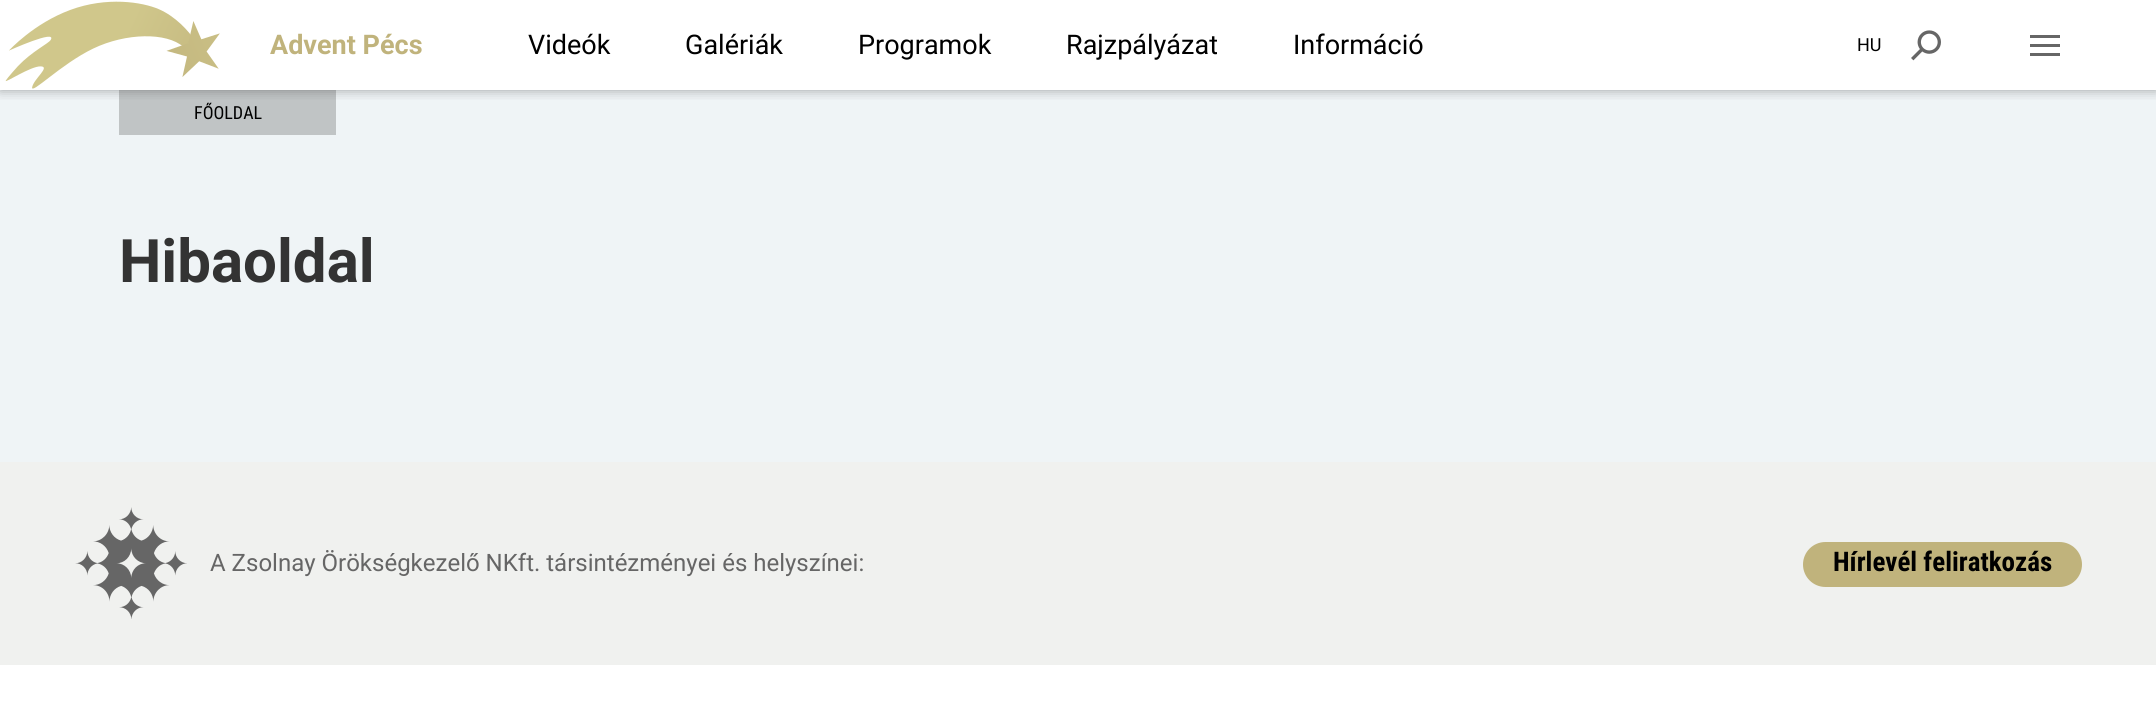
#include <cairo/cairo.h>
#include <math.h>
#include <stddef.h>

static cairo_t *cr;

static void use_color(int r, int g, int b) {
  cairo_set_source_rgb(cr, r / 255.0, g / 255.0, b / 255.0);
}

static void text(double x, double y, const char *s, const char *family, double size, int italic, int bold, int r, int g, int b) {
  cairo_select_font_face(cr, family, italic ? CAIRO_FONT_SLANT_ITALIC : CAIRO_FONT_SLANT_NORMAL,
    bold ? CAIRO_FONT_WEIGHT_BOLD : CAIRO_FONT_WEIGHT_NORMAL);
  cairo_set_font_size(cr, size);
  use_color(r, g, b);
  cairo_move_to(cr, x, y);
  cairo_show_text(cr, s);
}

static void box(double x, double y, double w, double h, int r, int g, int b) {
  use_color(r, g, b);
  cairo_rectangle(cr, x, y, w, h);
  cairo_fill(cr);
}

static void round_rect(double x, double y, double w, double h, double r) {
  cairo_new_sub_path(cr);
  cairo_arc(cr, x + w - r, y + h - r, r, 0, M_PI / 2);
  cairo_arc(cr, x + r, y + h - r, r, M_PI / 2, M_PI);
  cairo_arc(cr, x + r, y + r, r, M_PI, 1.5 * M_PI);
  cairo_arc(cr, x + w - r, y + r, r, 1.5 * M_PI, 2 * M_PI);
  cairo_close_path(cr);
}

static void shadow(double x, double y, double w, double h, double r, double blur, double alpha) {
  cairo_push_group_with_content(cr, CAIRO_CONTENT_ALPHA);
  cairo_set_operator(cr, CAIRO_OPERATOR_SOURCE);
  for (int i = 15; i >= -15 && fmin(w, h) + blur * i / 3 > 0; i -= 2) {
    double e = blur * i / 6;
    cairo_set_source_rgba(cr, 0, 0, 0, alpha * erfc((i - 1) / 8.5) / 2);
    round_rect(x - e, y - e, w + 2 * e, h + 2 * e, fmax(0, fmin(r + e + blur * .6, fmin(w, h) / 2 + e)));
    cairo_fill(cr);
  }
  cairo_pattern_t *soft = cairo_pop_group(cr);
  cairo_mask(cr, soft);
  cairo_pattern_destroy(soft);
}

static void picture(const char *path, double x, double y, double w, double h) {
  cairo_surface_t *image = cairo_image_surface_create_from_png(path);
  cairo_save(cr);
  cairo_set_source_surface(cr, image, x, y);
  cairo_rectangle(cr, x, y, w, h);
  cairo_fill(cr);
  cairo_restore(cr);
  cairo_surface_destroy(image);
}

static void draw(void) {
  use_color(255, 255, 255);
  cairo_paint(cr);
  box(0, 90, 2156, 372, 239, 244, 246);
  box(119, 90, 217, 45, 192, 196, 197);
  cairo_save(cr);
  cairo_rectangle(cr, 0, 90, 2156, 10);
  cairo_clip(cr);
  use_color(51, 51, 51);
  shadow(0, 0, 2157, 90, 0, 6, 0.43);
  cairo_restore(cr);
  picture("img_01.png", 5, 1, 215, 88);
  picture("img_02.png", 1911, 30, 30, 31);
  box(2030, 44, 30, 3, 102, 102, 102);
  box(2030, 35, 30, 3, 102, 102, 102);
  box(2030, 53, 30, 3, 102, 102, 102);
  box(0, 462, 2156, 203, 240, 241, 239);
  picture("img_03.png", 75, 507, 112, 112);
  use_color(192, 179, 124);
  round_rect(1803, 542, 279, 45, 22.5);
  cairo_fill(cr);
  text(270, 54, "Advent Pécs", "Roboto", 27, 0, 1, 192, 179, 124);
  text(528, 54, "Videók", "Roboto", 27, 0, 0, 0, 0, 0);
  text(685, 54, "Galériák", "Roboto", 27, 0, 0, 0, 0, 0);
  text(858, 54, "Programok", "Roboto", 27, 0, 0, 0, 0, 0);
  text(1066, 54, "Rajzpályázat", "Roboto", 27, 0, 0, 0, 0, 0);
  text(1293, 54, "Információ", "Roboto", 27, 0, 0, 0, 0, 0);
  text(1857, 51, "HU", "Roboto", 18, 0, 0, 0, 0, 0);
  text(194, 119, "FŐOLDAL", "Roboto Condensed", 18, 0, 0, 0, 0, 0);
  text(119, 282, "Hibaoldal", "Roboto", 60, 0, 1, 51, 51, 51);
  text(210, 571, "A Zsolnay Örökségkezelő NKft. társintézményei és helyszínei:", "Roboto", 24, 0, 0, 102, 102, 102);
  text(1833, 571, "Hírlevél feliratkozás", "Roboto Condensed", 27, 0, 1, 0, 0, 0);
}

int main(void) {
  cairo_surface_t *surface = cairo_image_surface_create(CAIRO_FORMAT_RGB24, 2156, 705);
  cr = cairo_create(surface);
  cairo_font_options_t *options = cairo_font_options_create();
  cairo_font_options_set_hint_metrics(options, CAIRO_HINT_METRICS_OFF);
  cairo_font_options_set_hint_style(options, CAIRO_HINT_STYLE_NONE);
  cairo_set_font_options(cr, options);
  cairo_set_miter_limit(cr, 4);
  draw();
  cairo_surface_write_to_png(surface, "out.png");
  cairo_font_options_destroy(options);
  cairo_destroy(cr);
  cairo_surface_destroy(surface);
  return 0;
}
